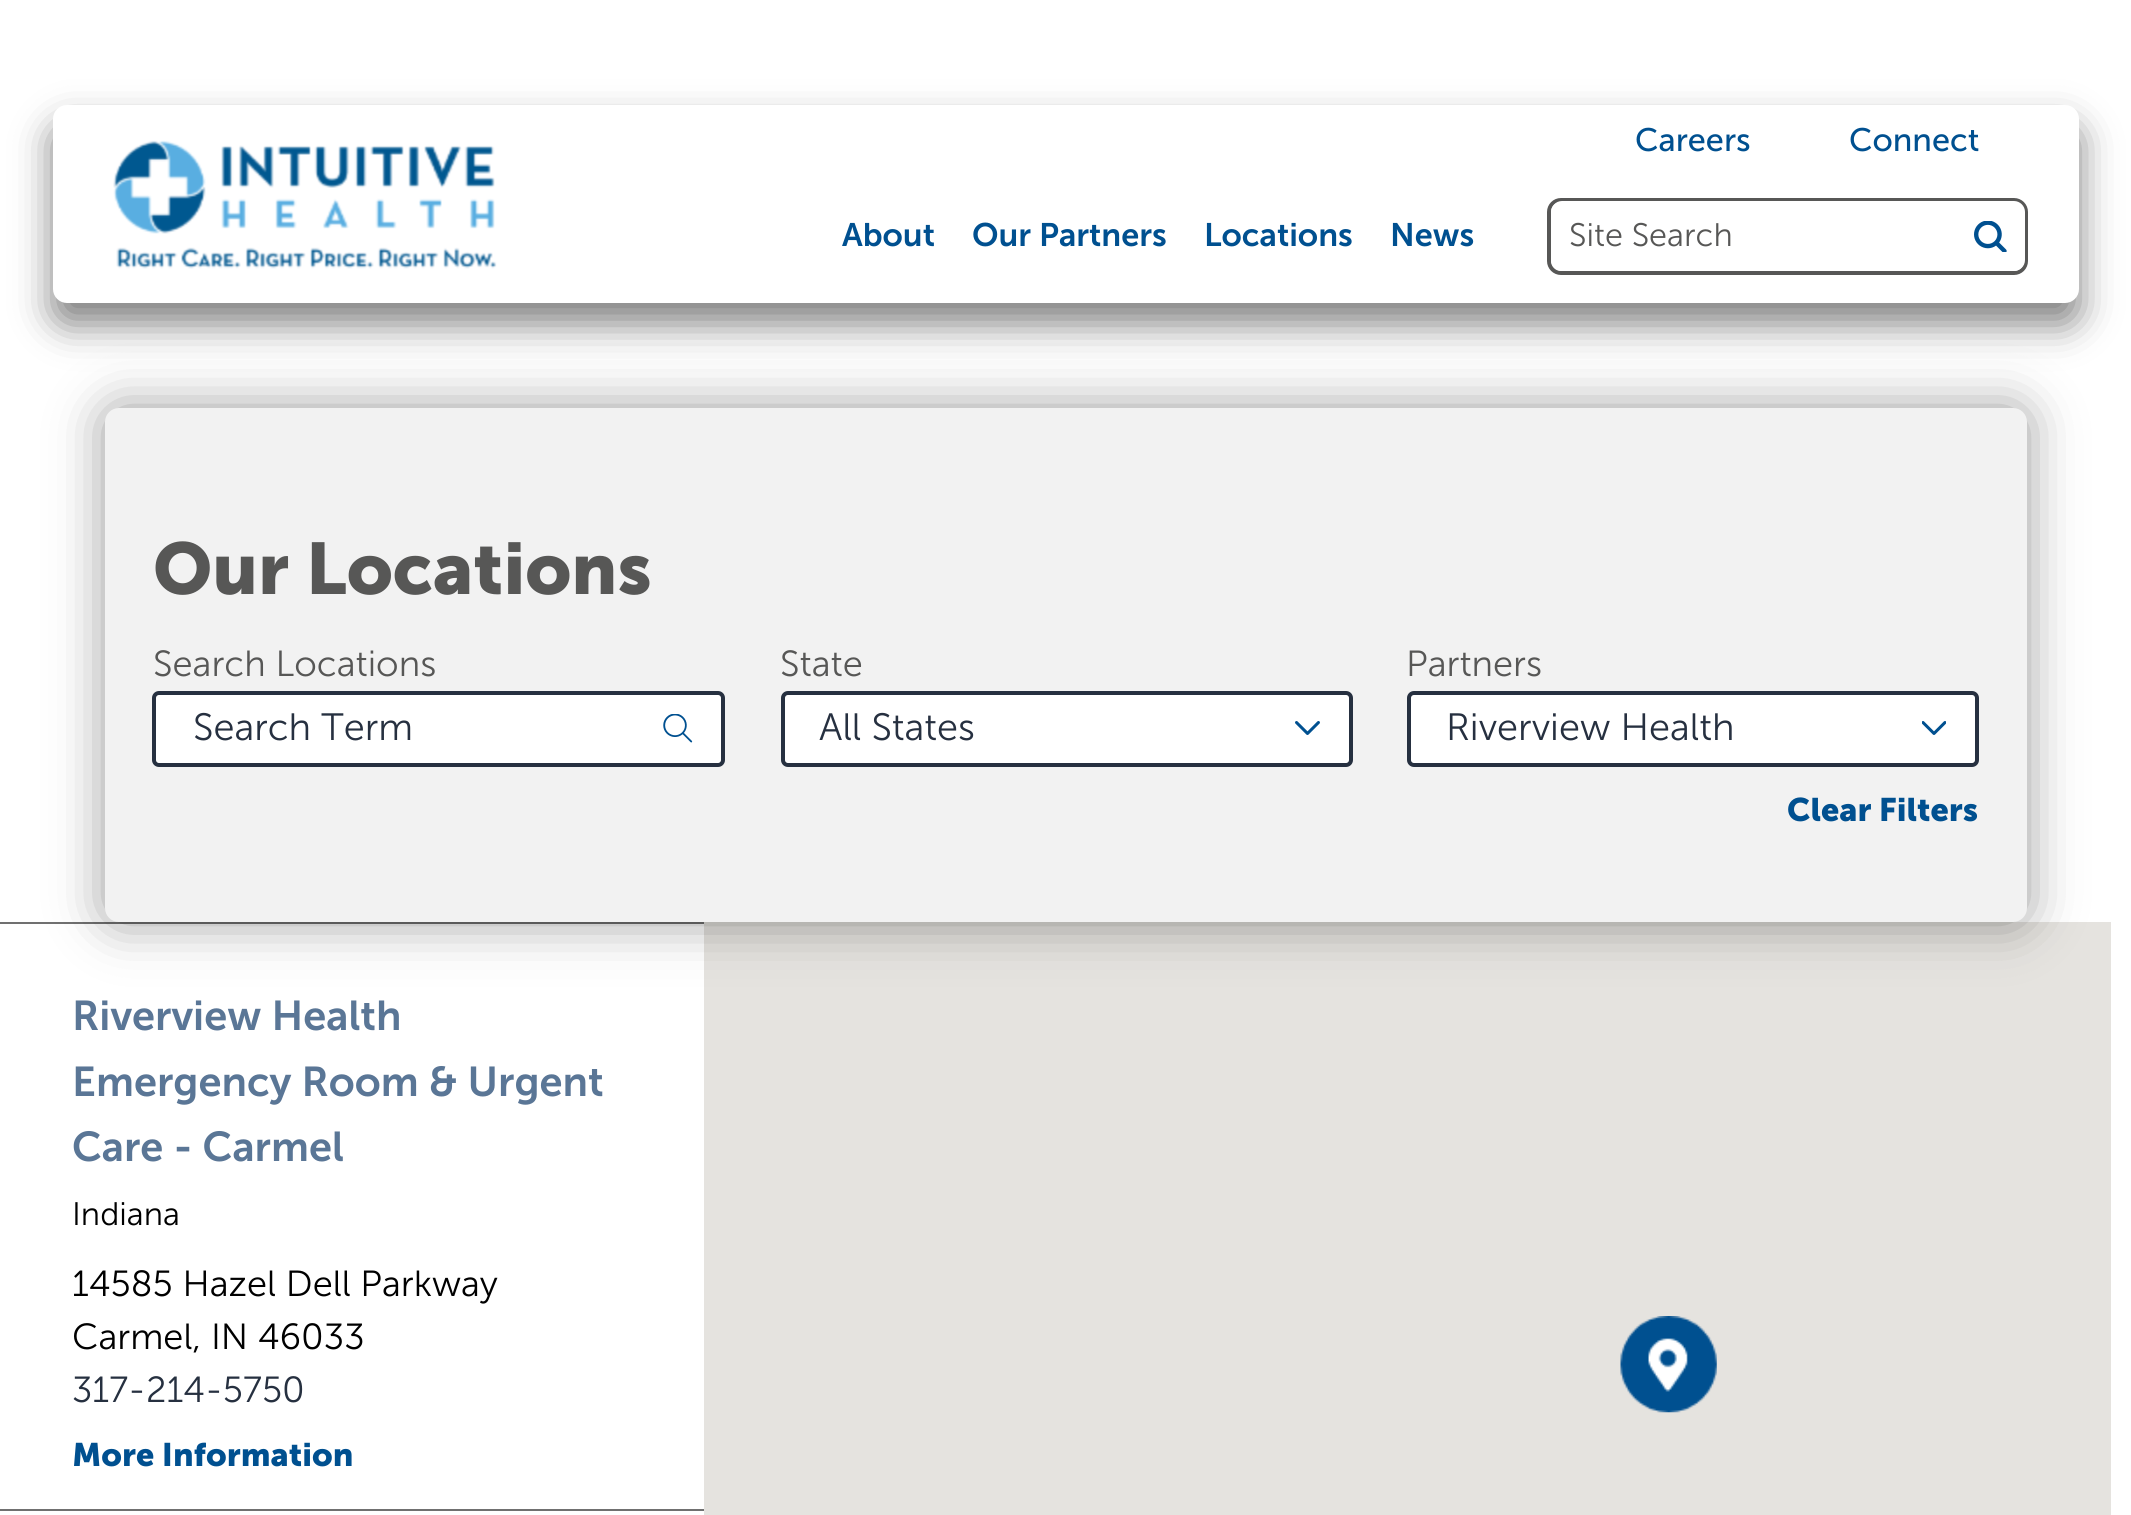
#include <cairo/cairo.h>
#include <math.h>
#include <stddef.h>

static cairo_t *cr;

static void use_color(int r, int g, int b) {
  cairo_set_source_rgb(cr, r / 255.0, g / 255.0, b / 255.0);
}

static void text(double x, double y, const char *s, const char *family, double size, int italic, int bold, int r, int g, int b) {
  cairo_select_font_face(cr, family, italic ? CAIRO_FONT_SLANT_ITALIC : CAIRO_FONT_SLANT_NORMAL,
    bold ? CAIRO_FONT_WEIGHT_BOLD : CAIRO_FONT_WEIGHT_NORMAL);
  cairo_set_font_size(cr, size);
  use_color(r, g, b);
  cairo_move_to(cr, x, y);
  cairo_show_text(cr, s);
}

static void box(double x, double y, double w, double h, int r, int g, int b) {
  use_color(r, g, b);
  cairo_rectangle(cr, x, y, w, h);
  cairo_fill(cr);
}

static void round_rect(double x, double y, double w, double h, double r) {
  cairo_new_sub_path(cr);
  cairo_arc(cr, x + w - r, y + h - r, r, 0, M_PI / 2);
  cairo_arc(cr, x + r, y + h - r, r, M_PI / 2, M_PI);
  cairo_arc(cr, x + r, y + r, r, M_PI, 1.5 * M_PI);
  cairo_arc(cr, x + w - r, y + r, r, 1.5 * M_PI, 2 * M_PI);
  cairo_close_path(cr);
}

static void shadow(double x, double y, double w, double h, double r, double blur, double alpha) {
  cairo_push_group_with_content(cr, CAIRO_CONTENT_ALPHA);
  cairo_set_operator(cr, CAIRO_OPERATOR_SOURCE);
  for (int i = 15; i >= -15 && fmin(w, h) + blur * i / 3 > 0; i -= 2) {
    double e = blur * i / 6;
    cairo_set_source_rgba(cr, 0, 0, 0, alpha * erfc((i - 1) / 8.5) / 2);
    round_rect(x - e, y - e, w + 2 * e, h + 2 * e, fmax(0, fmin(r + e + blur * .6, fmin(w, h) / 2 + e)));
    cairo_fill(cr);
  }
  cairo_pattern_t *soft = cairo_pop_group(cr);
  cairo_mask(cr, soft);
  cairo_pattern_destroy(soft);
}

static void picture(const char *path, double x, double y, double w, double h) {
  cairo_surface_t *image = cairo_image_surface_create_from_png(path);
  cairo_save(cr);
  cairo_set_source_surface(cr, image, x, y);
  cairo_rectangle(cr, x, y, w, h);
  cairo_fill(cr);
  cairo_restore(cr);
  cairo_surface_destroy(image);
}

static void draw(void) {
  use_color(255, 255, 255);
  cairo_paint(cr);
  use_color(0, 0, 0);
  shadow(53, 126, 2026, 198, 14, 19, 0.5);
  use_color(255, 255, 255);
  round_rect(53, 105, 2026, 198, 14);
  cairo_fill(cr);
  picture("img_01.png", 113, 140, 384, 129);
  round_rect(1549, 200, 477, 73, 12);
  use_color(87, 87, 86);
  cairo_set_line_width(cr, 4);
  cairo_stroke(cr);
  use_color(255, 255, 255);
  cairo_new_path(cr);
  cairo_move_to(cr, 1562, 201);
  cairo_line_to(cr, 1957, 201);
  cairo_line_to(cr, 1957, 271);
  cairo_line_to(cr, 1562, 271);
  cairo_curve_to(cr, 1556, 271, 1551, 266, 1551, 260);
  cairo_line_to(cr, 1551, 212);
  cairo_curve_to(cr, 1551, 206, 1556, 201, 1562, 201);
  cairo_close_path(cr);
  cairo_fill(cr);
  cairo_new_path(cr);
  cairo_move_to(cr, 1957, 201);
  cairo_line_to(cr, 2014, 201);
  cairo_curve_to(cr, 2020, 201, 2025, 206, 2025, 212);
  cairo_line_to(cr, 2025, 260);
  cairo_curve_to(cr, 2025, 266, 2020, 271, 2014, 271);
  cairo_line_to(cr, 1957, 271);
  cairo_close_path(cr);
  cairo_fill(cr);
  picture("img_02.png", 1974, 221, 33, 31);
  box(0, 922, 704, 2, 112, 112, 112);
  box(704, 922, 1407, 593, 229, 227, 223);
  use_color(0, 0, 0);
  shadow(105, 408, 1922, 514, 14, 26, 0.4);
  use_color(242, 242, 242);
  round_rect(105, 408, 1922, 514, 14);
  cairo_fill(cr);
  use_color(255, 255, 255);
  round_rect(154, 693, 569, 72, 5);
  cairo_fill_preserve(cr);
  use_color(38, 48, 64);
  cairo_stroke(cr);
  picture("img_03.png", 663, 714, 30, 29);
  use_color(255, 255, 255);
  round_rect(783, 693, 568, 72, 5);
  cairo_fill_preserve(cr);
  use_color(38, 48, 64);
  cairo_stroke(cr);
  picture("img_04.png", 1295, 721, 25, 14);
  use_color(255, 255, 255);
  round_rect(1409, 693, 568, 72, 5);
  cairo_fill_preserve(cr);
  use_color(38, 48, 64);
  cairo_stroke(cr);
  picture("img_05.png", 1922, 721, 24, 14);
  box(0, 1509, 704, 2, 112, 112, 112);
  picture("img_06.png", 1620, 1316, 97, 97);
  text(1635, 151, "Careers", "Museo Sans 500", 32.5, 0, 0, 0, 80, 144);
  text(1849, 151, "Connect", "Museo Sans 500", 32.5, 0, 0, 0, 80, 144);
  text(842, 246, "About", "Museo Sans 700 SemiBold", 32.5, 0, 0, 0, 80, 144);
  text(972, 246, "Our Partners", "Museo Sans 700 SemiBold", 32.5, 0, 0, 0, 80, 144);
  text(1204, 246, "Locations", "Museo Sans 700 SemiBold", 32.5, 0, 0, 0, 80, 144);
  text(1390, 246, "News", "Museo Sans 700 SemiBold", 32.5, 0, 0, 0, 80, 144);
  text(1569, 246, "Site Search", "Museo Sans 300 Light", 32.5, 0, 0, 87, 87, 86);
  text(153, 594, "Our Locations", "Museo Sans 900", 72.5, 0, 1, 87, 87, 86);
  text(153, 676, "Search Locations", "Museo Sans 300 Light", 36.25, 0, 0, 87, 87, 86);
  text(193, 740, "Search Term", "Museo Sans 300 Light", 38, 0, 0, 38, 48, 64);
  text(780, 676, "State", "Museo Sans 300 Light", 36.25, 0, 0, 87, 87, 86);
  text(819, 740, "All States", "Museo Sans 300 Light", 38, 0, 0, 38, 48, 64);
  text(1406, 676, "Partners", "Museo Sans 300 Light", 36.25, 0, 0, 87, 87, 86);
  text(1446, 740, "Riverview Health", "Museo Sans 300 Light", 38, 0, 0, 38, 48, 64);
  text(1787, 821, "Clear Filters", "Museo Sans 900", 32.5, 0, 1, 0, 80, 144);
  text(72, 1030, "Riverview Health", "Museo Sans 700 SemiBold", 41.6, 0, 0, 90, 118, 150);
  text(72, 1096, "Emergency Room & Urgent", "Museo Sans 700 SemiBold", 41.6, 0, 0, 90, 118, 150);
  text(72, 1161, "Care - Carmel", "Museo Sans 700 SemiBold", 41.6, 0, 0, 90, 118, 150);
  text(72, 1225, "Indiana", "Museo Sans 300 Light", 32.5, 0, 0, 0, 0, 0);
  text(72, 1296, "14585 Hazel Dell Parkway", "Museo Sans 300 Light", 36.25, 0, 0, 0, 0, 0);
  text(72, 1349, "Carmel, IN 46033", "Museo Sans 300 Light", 36.25, 0, 0, 0, 0, 0);
  text(72, 1402, "317-214-5750", "Museo Sans 300 Light", 36.25, 0, 0, 38, 48, 64);
  text(72, 1466, "More Information", "Museo Sans 900", 32.5, 0, 1, 0, 80, 144);
}

int main(void) {
  cairo_surface_t *surface = cairo_image_surface_create(CAIRO_FORMAT_RGB24, 2131, 1515);
  cr = cairo_create(surface);
  cairo_font_options_t *options = cairo_font_options_create();
  cairo_font_options_set_hint_metrics(options, CAIRO_HINT_METRICS_OFF);
  cairo_font_options_set_hint_style(options, CAIRO_HINT_STYLE_NONE);
  cairo_set_font_options(cr, options);
  cairo_set_miter_limit(cr, 4);
  draw();
  cairo_surface_write_to_png(surface, "out.png");
  cairo_font_options_destroy(options);
  cairo_destroy(cr);
  cairo_surface_destroy(surface);
  return 0;
}
